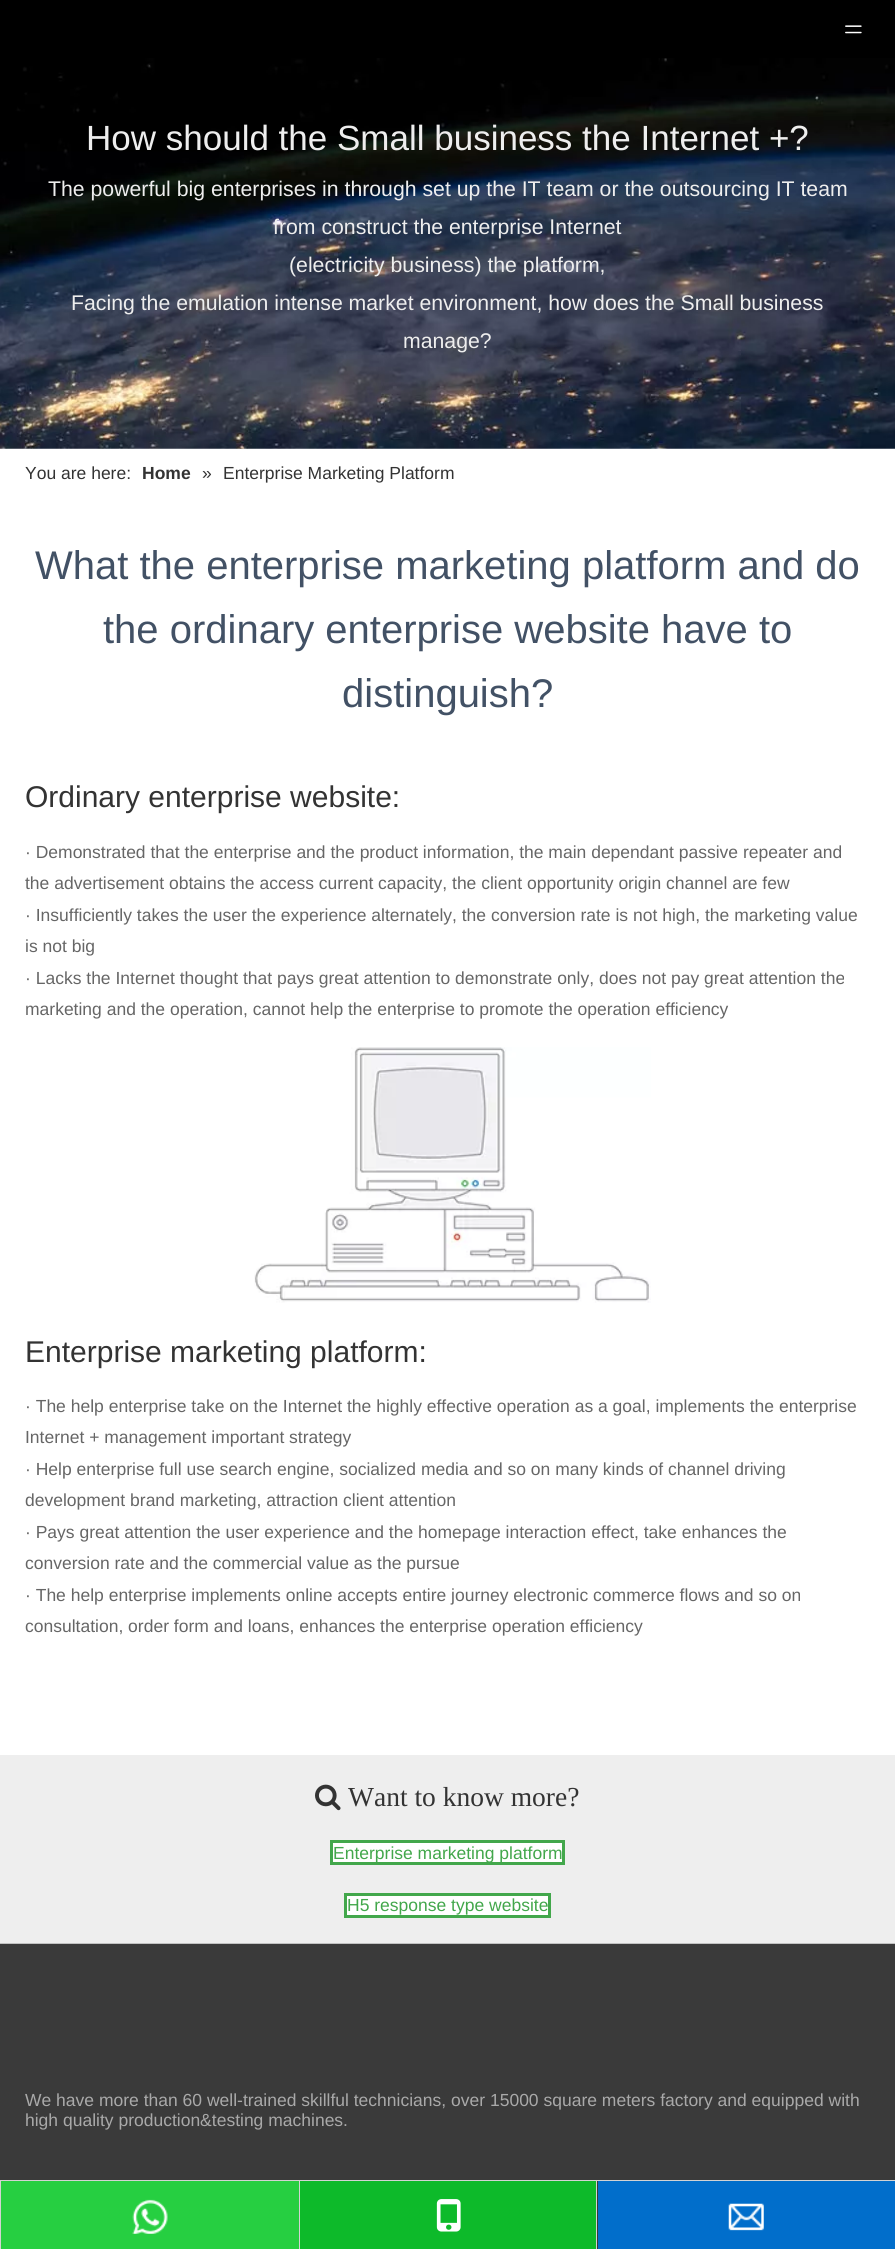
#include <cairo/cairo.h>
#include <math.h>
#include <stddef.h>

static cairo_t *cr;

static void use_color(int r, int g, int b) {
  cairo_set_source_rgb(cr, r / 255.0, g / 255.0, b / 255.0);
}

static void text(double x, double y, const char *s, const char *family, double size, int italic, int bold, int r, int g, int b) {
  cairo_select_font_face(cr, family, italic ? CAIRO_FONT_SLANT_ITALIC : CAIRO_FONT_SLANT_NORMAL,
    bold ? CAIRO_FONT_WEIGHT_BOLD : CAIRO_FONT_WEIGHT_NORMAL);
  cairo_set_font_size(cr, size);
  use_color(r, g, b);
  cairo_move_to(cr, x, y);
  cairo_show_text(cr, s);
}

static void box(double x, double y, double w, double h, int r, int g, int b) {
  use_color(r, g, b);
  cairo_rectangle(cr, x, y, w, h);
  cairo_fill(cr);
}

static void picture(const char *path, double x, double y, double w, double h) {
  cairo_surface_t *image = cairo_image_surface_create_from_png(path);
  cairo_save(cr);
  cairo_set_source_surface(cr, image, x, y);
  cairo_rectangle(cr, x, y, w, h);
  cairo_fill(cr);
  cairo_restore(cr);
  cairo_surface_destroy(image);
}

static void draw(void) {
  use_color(255, 255, 255);
  cairo_paint(cr);
  box(0, 0, 895, 58, 0, 0, 0);
  picture("img_01.png", 845, 25, 17, 9);
  picture("img_02.png", 0, 58, 895, 391);
  picture("img_03.png", 254, 1047, 397, 256);
  box(0, 1755, 895, 188, 238, 238, 238);
  picture("img_04.png", 315, 1784, 26, 27);
  use_color(255, 255, 255);
  cairo_rectangle(cr, 331.5, 1841.5, 232, 22);
  cairo_fill_preserve(cr);
  use_color(66, 167, 75);
  cairo_set_line_width(cr, 3);
  cairo_stroke(cr);
  use_color(255, 255, 255);
  cairo_rectangle(cr, 345.5, 1894.5, 204, 22);
  cairo_fill_preserve(cr);
  use_color(66, 167, 75);
  cairo_stroke(cr);
  box(0, 1944, 895, 305, 58, 58, 58);
  box(0, 1943, 895, 1, 193, 193, 193);
  box(0, 2180, 895, 1, 211, 211, 211);
  box(0, 2181, 1, 68, 211, 211, 211);
  box(1, 2181, 298, 68, 38, 207, 65);
  picture("img_05.png", 132, 2199, 36, 35);
  box(299, 2181, 1, 68, 211, 211, 211);
  box(300, 2181, 296, 68, 13, 186, 42);
  picture("img_06.png", 436, 2199, 25, 33);
  box(596, 2181, 1, 68, 211, 211, 211);
  box(598, 2181, 297, 68, 1, 110, 203);
  picture("img_07.png", 728, 2203, 36, 28);
  text(86, 150, "How should the Small business the Internet +?", "Liberation Sans", 35, 0, 0, 238, 238, 238);
  text(48, 196, "The powerful big enterprises in through set up the IT team or the outsourcing IT team", "Liberation Sans", 21.25, 0, 0, 238, 238, 238);
  text(273, 234, "from construct the enterprise Internet", "Liberation Sans", 21.25, 0, 0, 238, 238, 238);
  text(289, 272, "(electricity business) the platform,", "Liberation Sans", 21.25, 0, 0, 238, 238, 238);
  text(71, 310, "Facing the emulation intense market environment, how does the Small business", "Liberation Sans", 21.25, 0, 0, 238, 238, 238);
  text(403, 348, "manage?", "Liberation Sans", 21.25, 0, 0, 238, 238, 238);
  text(25, 479, "You are here:", "Liberation Sans", 17.5, 0, 0, 51, 51, 51);
  text(142, 479, "Home", "Liberation Sans", 17.5, 0, 1, 51, 51, 51);
  text(202, 479, "»", "Liberation Sans", 17.5, 0, 0, 51, 51, 51);
  text(223, 479, "Enterprise Marketing Platform", "Liberation Sans", 17.5, 0, 0, 51, 51, 51);
  text(35, 579, "What the enterprise marketing platform and do", "Liberation Sans", 40, 0, 0, 66, 81, 101);
  text(103, 643, "the ordinary enterprise website have to", "Liberation Sans", 40, 0, 0, 66, 81, 101);
  text(342, 707, "distinguish?", "Liberation Sans", 40, 0, 0, 66, 81, 101);
  text(25, 807, "Ordinary enterprise website:", "Liberation Sans", 30, 0, 0, 51, 51, 51);
  text(25, 858, "· Demonstrated that the enterprise and the product information, the main dependant passive repeater and", "Liberation Sans", 17.5, 0, 0, 102, 102, 102);
  text(25, 889, "the advertisement obtains the access current capacity, the client opportunity origin channel are few", "Liberation Sans", 17.5, 0, 0, 102, 102, 102);
  text(25, 921, "· Insufficiently takes the user the experience alternately, the conversion rate is not high, the marketing value", "Liberation Sans", 17.5, 0, 0, 102, 102, 102);
  text(25, 952, "is not big", "Liberation Sans", 17.5, 0, 0, 102, 102, 102);
  text(25, 984, "· Lacks the Internet thought that pays great attention to demonstrate only, does not pay great attention the", "Liberation Sans", 17.5, 0, 0, 102, 102, 102);
  text(25, 1015, "marketing and the operation, cannot help the enterprise to promote the operation efficiency", "Liberation Sans", 17.5, 0, 0, 102, 102, 102);
  text(25, 1362, "Enterprise marketing platform:", "Liberation Sans", 30, 0, 0, 51, 51, 51);
  text(25, 1412, "· The help enterprise take on the Internet the highly effective operation as a goal, implements the enterprise", "Liberation Sans", 17.5, 0, 0, 102, 102, 102);
  text(25, 1443, "Internet + management important strategy", "Liberation Sans", 17.5, 0, 0, 102, 102, 102);
  text(25, 1475, "· Help enterprise full use search engine, socialized media and so on many kinds of channel driving", "Liberation Sans", 17.5, 0, 0, 102, 102, 102);
  text(25, 1506, "development brand marketing, attraction client attention", "Liberation Sans", 17.5, 0, 0, 102, 102, 102);
  text(25, 1538, "· Pays great attention the user experience and the homepage interaction effect, take enhances the", "Liberation Sans", 17.5, 0, 0, 102, 102, 102);
  text(25, 1569, "conversion rate and the commercial value as the pursue", "Liberation Sans", 17.5, 0, 0, 102, 102, 102);
  text(25, 1601, "· The help enterprise implements online accepts entire journey electronic commerce flows and so on", "Liberation Sans", 17.5, 0, 0, 102, 102, 102);
  text(25, 1632, "consultation, order form and loans, enhances the enterprise operation efficiency", "Liberation Sans", 17.5, 0, 0, 102, 102, 102);
  text(348, 1806, "Want to know more?", "Liberation Serif", 27.5, 0, 0, 51, 51, 51);
  text(333, 1859, "Enterprise marketing platform", "Liberation Sans", 17.5, 0, 0, 66, 167, 75);
  text(347, 1911, "H5 response type website", "Liberation Sans", 17.5, 0, 0, 66, 167, 75);
  text(25, 2106, "We have more than 60 well-trained skillful technicians, over 15000 square meters factory and equipped with", "Liberation Sans", 17.5, 0, 0, 169, 169, 169);
  text(25, 2126, "high quality production&testing machines.", "Liberation Sans", 17.5, 0, 0, 169, 169, 169);
}

int main(void) {
  cairo_surface_t *surface = cairo_image_surface_create(CAIRO_FORMAT_RGB24, 895, 2249);
  cr = cairo_create(surface);
  cairo_font_options_t *options = cairo_font_options_create();
  cairo_font_options_set_hint_metrics(options, CAIRO_HINT_METRICS_OFF);
  cairo_font_options_set_hint_style(options, CAIRO_HINT_STYLE_NONE);
  cairo_set_font_options(cr, options);
  cairo_set_miter_limit(cr, 4);
  draw();
  cairo_surface_write_to_png(surface, "out.png");
  cairo_font_options_destroy(options);
  cairo_destroy(cr);
  cairo_surface_destroy(surface);
  return 0;
}
